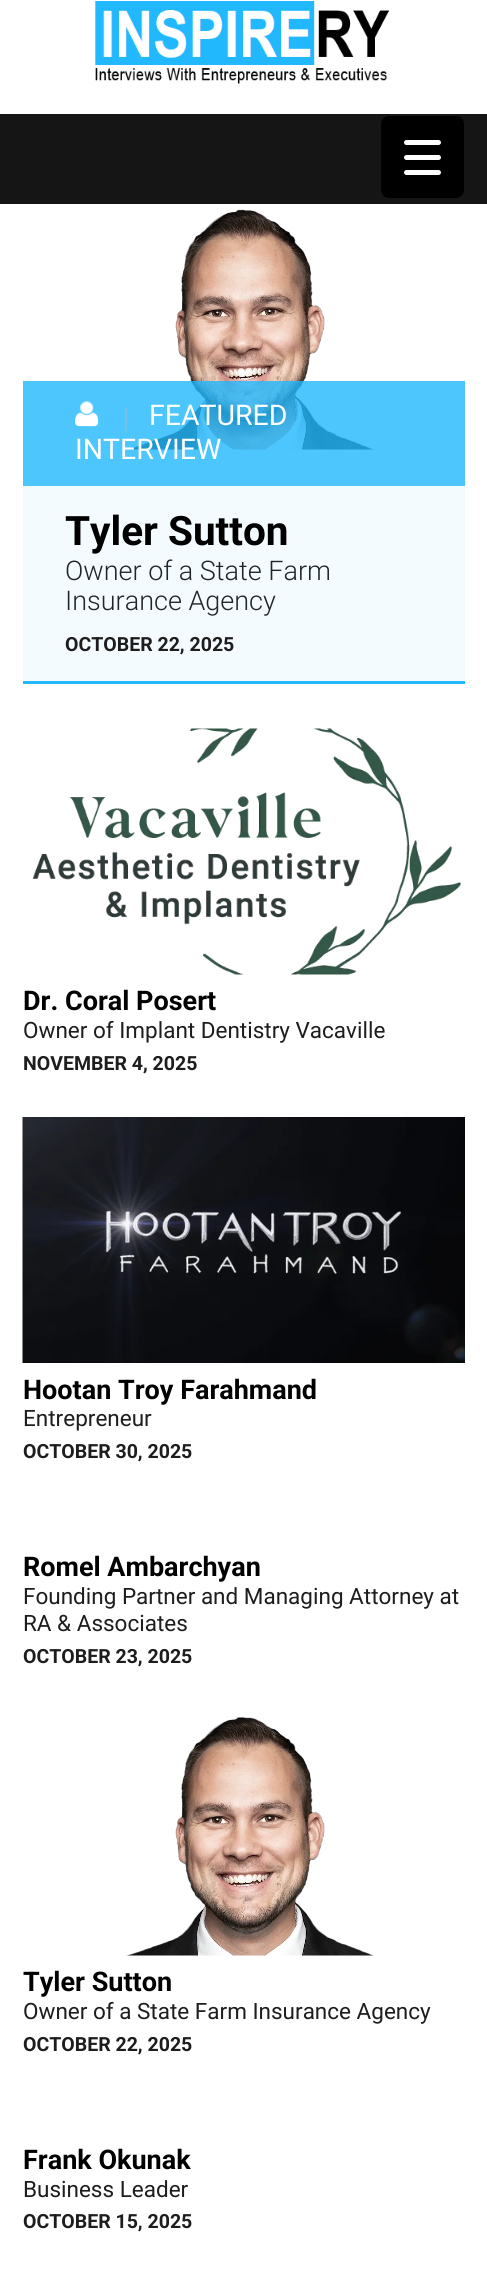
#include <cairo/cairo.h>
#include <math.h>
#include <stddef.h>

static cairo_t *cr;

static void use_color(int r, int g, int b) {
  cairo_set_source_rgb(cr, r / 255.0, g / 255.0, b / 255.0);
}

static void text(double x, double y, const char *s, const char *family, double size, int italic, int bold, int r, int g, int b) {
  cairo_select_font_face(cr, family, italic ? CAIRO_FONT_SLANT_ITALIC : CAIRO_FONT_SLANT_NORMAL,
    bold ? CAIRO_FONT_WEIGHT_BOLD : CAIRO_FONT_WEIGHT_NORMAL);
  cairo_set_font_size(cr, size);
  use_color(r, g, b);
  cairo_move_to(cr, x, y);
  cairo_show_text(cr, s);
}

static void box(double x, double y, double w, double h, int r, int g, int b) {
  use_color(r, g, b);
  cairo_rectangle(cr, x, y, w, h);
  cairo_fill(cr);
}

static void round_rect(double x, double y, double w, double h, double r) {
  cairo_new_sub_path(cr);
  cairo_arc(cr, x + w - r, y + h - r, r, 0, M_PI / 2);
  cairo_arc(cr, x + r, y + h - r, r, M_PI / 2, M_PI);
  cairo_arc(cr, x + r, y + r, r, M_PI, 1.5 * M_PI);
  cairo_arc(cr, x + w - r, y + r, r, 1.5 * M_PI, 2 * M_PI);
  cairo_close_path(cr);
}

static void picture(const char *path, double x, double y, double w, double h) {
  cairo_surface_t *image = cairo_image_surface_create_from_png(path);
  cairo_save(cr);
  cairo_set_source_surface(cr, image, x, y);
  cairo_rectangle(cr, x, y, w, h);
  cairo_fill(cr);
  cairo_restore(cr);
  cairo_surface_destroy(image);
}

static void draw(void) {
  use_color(255, 255, 255);
  cairo_paint(cr);
  box(0, 114, 487, 90, 21, 21, 21);
  use_color(0, 0, 0);
  round_rect(381, 116, 83, 82, 8);
  cairo_fill(cr);
  use_color(255, 255, 255);
  round_rect(404, 155, 37, 5, 2.5);
  cairo_fill(cr);
  round_rect(404, 140, 37, 5, 2.5);
  cairo_fill(cr);
  round_rect(404, 170, 37, 5, 2.5);
  cairo_fill(cr);
  picture("img_01.png", 95, 1, 294, 83);
  picture("img_02.png", 126, 209, 248, 241);
  cairo_set_source_rgba(cr, 0.129, 0.722, 0.992, 0.8);
  cairo_rectangle(cr, 23, 381, 442, 105);
  cairo_fill(cr);
  picture("img_03.png", 75, 401, 24, 26);
  box(125, 407, 2, 24, 119, 193, 227);
  box(23, 486, 442, 195, 244, 251, 255);
  box(23, 681, 442, 3, 33, 184, 253);
  picture("img_04.png", 32, 728, 429, 247);
  picture("img_05.png", 22, 1117, 443, 246);
  picture("img_06.png", 126, 1717, 248, 239);
  text(149, 425, "FEATURED", "Roboto", 28.5, 0, 0, 255, 255, 255);
  text(75, 459, "INTERVIEW", "Roboto", 28.5, 0, 0, 255, 255, 255);
  text(65, 545, "Tyler Sutton", "Roboto", 40.5, 0, 1, 0, 0, 0);
  text(65, 580, "Owner of a State Farm", "Roboto Light", 27, 0, 0, 33, 37, 41);
  text(65, 610, "Insurance Agency", "Roboto Light", 27, 0, 0, 33, 37, 41);
  text(65, 651, "OCTOBER 22, 2025", "Roboto", 19.5, 0, 1, 29, 29, 29);
  text(23, 1010, "Dr. Coral Posert", "Roboto", 27, 0, 1, 0, 0, 0);
  text(23, 1038, "Owner of Implant Dentistry Vacaville", "Roboto", 22.5, 0, 0, 29, 29, 29);
  text(23, 1070, "NOVEMBER 4, 2025", "Roboto", 19.5, 0, 1, 29, 29, 29);
  text(23, 1399, "Hootan Troy Farahmand", "Roboto", 27, 0, 1, 0, 0, 0);
  text(23, 1426, "Entrepreneur", "Roboto", 22.5, 0, 0, 29, 29, 29);
  text(23, 1458, "OCTOBER 30, 2025", "Roboto", 19.5, 0, 1, 29, 29, 29);
  text(23, 1576, "Romel Ambarchyan", "Roboto", 27, 0, 1, 0, 0, 0);
  text(23, 1604, "Founding Partner and Managing Attorney at", "Roboto", 22.5, 0, 0, 29, 29, 29);
  text(23, 1631, "RA & Associates", "Roboto", 22.5, 0, 0, 29, 29, 29);
  text(23, 1663, "OCTOBER 23, 2025", "Roboto", 19.5, 0, 1, 29, 29, 29);
  text(23, 1991, "Tyler Sutton", "Roboto", 27, 0, 1, 0, 0, 0);
  text(23, 2019, "Owner of a State Farm Insurance Agency", "Roboto", 22.5, 0, 0, 29, 29, 29);
  text(23, 2051, "OCTOBER 22, 2025", "Roboto", 19.5, 0, 1, 29, 29, 29);
  text(23, 2169, "Frank Okunak", "Roboto", 27, 0, 1, 0, 0, 0);
  text(23, 2197, "Business Leader", "Roboto", 22.5, 0, 0, 29, 29, 29);
  text(23, 2228, "OCTOBER 15, 2025", "Roboto", 19.5, 0, 1, 29, 29, 29);
}

int main(void) {
  cairo_surface_t *surface = cairo_image_surface_create(CAIRO_FORMAT_RGB24, 487, 2291);
  cr = cairo_create(surface);
  cairo_font_options_t *options = cairo_font_options_create();
  cairo_font_options_set_hint_metrics(options, CAIRO_HINT_METRICS_OFF);
  cairo_font_options_set_hint_style(options, CAIRO_HINT_STYLE_NONE);
  cairo_set_font_options(cr, options);
  cairo_set_miter_limit(cr, 4);
  draw();
  cairo_surface_write_to_png(surface, "out.png");
  cairo_font_options_destroy(options);
  cairo_destroy(cr);
  cairo_surface_destroy(surface);
  return 0;
}
